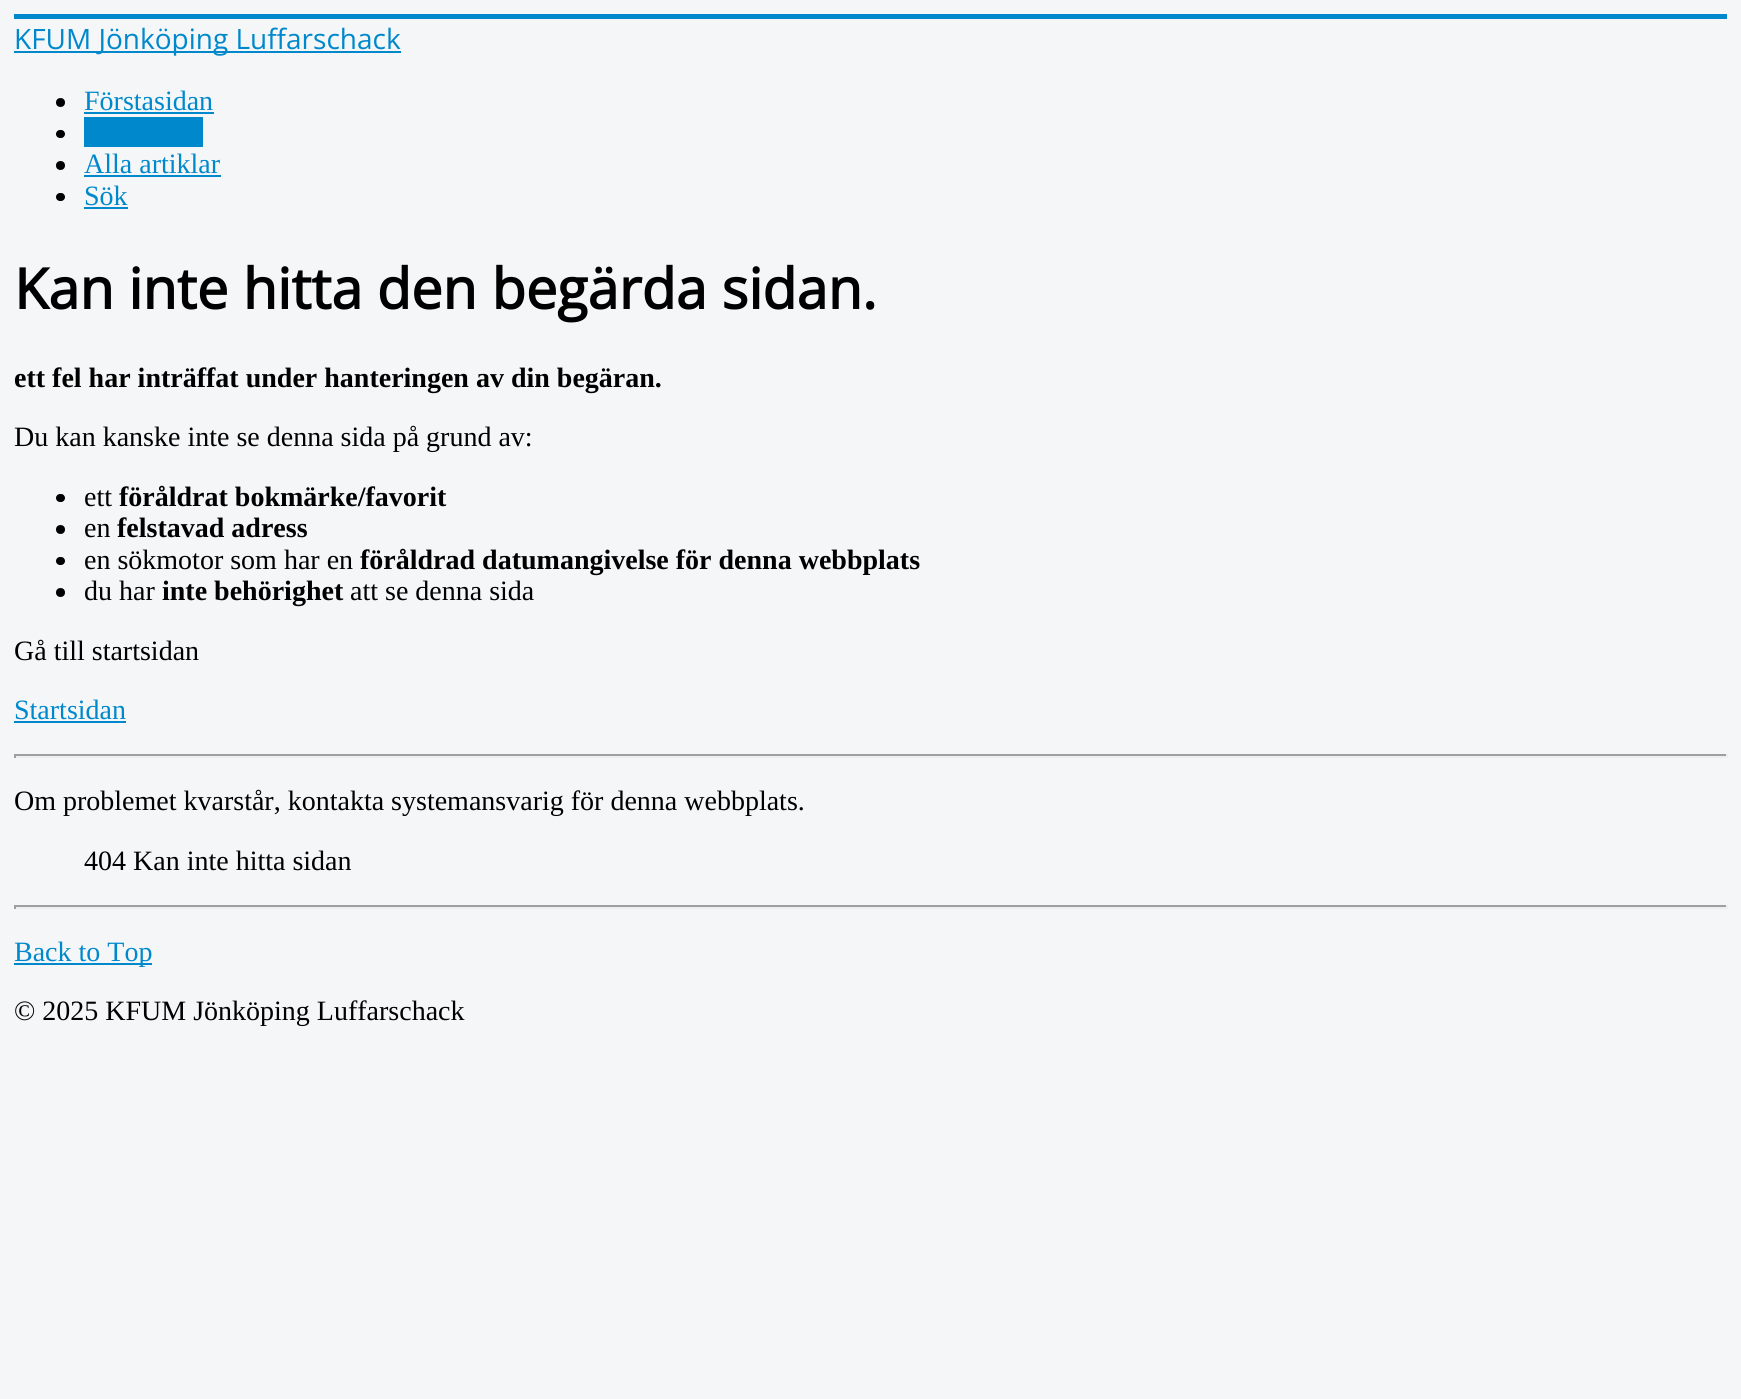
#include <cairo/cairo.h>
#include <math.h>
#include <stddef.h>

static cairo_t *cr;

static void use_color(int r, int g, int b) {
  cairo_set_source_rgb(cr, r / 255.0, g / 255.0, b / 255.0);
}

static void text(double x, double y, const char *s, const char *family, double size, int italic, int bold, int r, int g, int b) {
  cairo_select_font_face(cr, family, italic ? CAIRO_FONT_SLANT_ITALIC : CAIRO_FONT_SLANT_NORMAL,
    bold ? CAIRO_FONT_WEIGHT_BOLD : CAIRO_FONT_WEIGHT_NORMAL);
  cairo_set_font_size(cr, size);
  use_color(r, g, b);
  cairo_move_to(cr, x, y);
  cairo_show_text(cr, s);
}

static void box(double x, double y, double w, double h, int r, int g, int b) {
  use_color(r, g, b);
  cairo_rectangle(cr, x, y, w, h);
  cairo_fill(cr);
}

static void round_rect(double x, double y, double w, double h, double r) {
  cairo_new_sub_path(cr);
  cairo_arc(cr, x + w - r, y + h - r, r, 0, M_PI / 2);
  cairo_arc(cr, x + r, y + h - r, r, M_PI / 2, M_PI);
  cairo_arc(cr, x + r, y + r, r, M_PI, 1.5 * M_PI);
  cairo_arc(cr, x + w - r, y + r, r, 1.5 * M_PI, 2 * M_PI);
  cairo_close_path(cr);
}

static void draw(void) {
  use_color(244, 246, 247);
  cairo_paint(cr);
  box(14, 14, 1713, 5, 0, 136, 204);
  box(14, 51, 387, 2, 0, 136, 204);
  use_color(0, 0, 0);
  cairo_arc(cr, 60.5, 102.5, 4.5, 0, 2 * M_PI);
  cairo_fill(cr);
  box(84, 112, 130, 2, 0, 136, 204);
  use_color(0, 0, 0);
  round_rect(56, 130, 9, 8, 4);
  cairo_fill(cr);
  box(84, 117, 119, 30, 0, 136, 204);
  use_color(0, 0, 0);
  cairo_arc(cr, 60.5, 165.5, 4.5, 0, 2 * M_PI);
  cairo_fill(cr);
  box(84, 175, 137, 2, 0, 136, 204);
  use_color(0, 0, 0);
  round_rect(56, 193, 9, 8, 4);
  cairo_fill(cr);
  box(84, 207, 44, 2, 0, 136, 204);
  use_color(0, 0, 0);
  round_rect(56, 494, 9, 8, 4);
  cairo_fill(cr);
  cairo_arc(cr, 60.5, 529.5, 4.5, 0, 2 * M_PI);
  cairo_fill(cr);
  round_rect(56, 557, 9, 8, 4);
  cairo_fill(cr);
  cairo_arc(cr, 60.5, 592.5, 4.5, 0, 2 * M_PI);
  cairo_fill(cr);
  box(14, 721, 112, 2, 0, 136, 204);
  box(14, 754, 1713, 2, 159, 159, 159);
  box(1726, 754, 2, 4, 238, 238, 238);
  box(14, 756, 1713, 2, 238, 238, 238);
  box(14, 754, 2, 4, 159, 159, 159);
  box(14, 905, 1713, 2, 159, 159, 159);
  box(1726, 905, 2, 4, 238, 238, 238);
  box(14, 907, 1713, 2, 238, 238, 238);
  box(14, 905, 2, 4, 159, 159, 159);
  box(14, 963, 138, 2, 0, 136, 204);
  text(14, 49, "KFUM Jönköping Luffarschack", "Open Sans", 28, 0, 0, 0, 136, 204);
  text(84, 110, "Förstasidan", "Liberation Serif", 28, 0, 0, 0, 136, 204);
  text(84, 173, "Alla artiklar", "Liberation Serif", 28, 0, 0, 0, 136, 204);
  text(84, 205, "Sök", "Liberation Serif", 28, 0, 0, 0, 136, 204);
  text(14, 309, "Kan inte hitta den begärda sidan.", "Open Sans", 56, 0, 1, 0, 0, 0);
  text(14, 387, "ett fel har inträffat under hanteringen av din begäran.", "Liberation Serif", 28, 0, 1, 0, 0, 0);
  text(14, 446, "Du kan kanske inte se denna sida på grund av:", "Liberation Serif", 28, 0, 0, 0, 0, 0);
  text(84, 506, "ett", "Liberation Serif", 28, 0, 0, 0, 0, 0);
  text(119, 506, "föråldrat bokmärke/favorit", "Liberation Serif", 28, 0, 1, 0, 0, 0);
  text(84, 537, "en", "Liberation Serif", 28, 0, 0, 0, 0, 0);
  text(117, 537, "felstavad adress", "Liberation Serif", 28, 0, 1, 0, 0, 0);
  text(84, 569, "en sökmotor som har en", "Liberation Serif", 28, 0, 0, 0, 0, 0);
  text(360, 569, "föråldrad datumangivelse för denna webbplats", "Liberation Serif", 28, 0, 1, 0, 0, 0);
  text(84, 600, "du har", "Liberation Serif", 28, 0, 0, 0, 0, 0);
  text(162, 600, "inte behörighet", "Liberation Serif", 28, 0, 1, 0, 0, 0);
  text(350, 600, "att se denna sida", "Liberation Serif", 28, 0, 0, 0, 0, 0);
  text(14, 660, "Gå till startsidan", "Liberation Serif", 28, 0, 0, 0, 0, 0);
  text(14, 719, "Startsidan", "Liberation Serif", 28, 0, 0, 0, 136, 204);
  text(14, 810, "Om problemet kvarstår, kontakta systemansvarig för denna webbplats.", "Liberation Serif", 28, 0, 0, 0, 0, 0);
  text(84, 870, "404 Kan inte hitta sidan", "Liberation Serif", 28, 0, 0, 0, 0, 0);
  text(14, 961, "Back to Top", "Liberation Serif", 28, 0, 0, 0, 136, 204);
  text(14, 1020, "© 2025 KFUM Jönköping Luffarschack", "Liberation Serif", 28, 0, 0, 0, 0, 0);
}

int main(void) {
  cairo_surface_t *surface = cairo_image_surface_create(CAIRO_FORMAT_RGB24, 1741, 1399);
  cr = cairo_create(surface);
  cairo_font_options_t *options = cairo_font_options_create();
  cairo_font_options_set_hint_metrics(options, CAIRO_HINT_METRICS_OFF);
  cairo_font_options_set_hint_style(options, CAIRO_HINT_STYLE_NONE);
  cairo_set_font_options(cr, options);
  cairo_set_miter_limit(cr, 4);
  draw();
  cairo_surface_write_to_png(surface, "out.png");
  cairo_font_options_destroy(options);
  cairo_destroy(cr);
  cairo_surface_destroy(surface);
  return 0;
}
